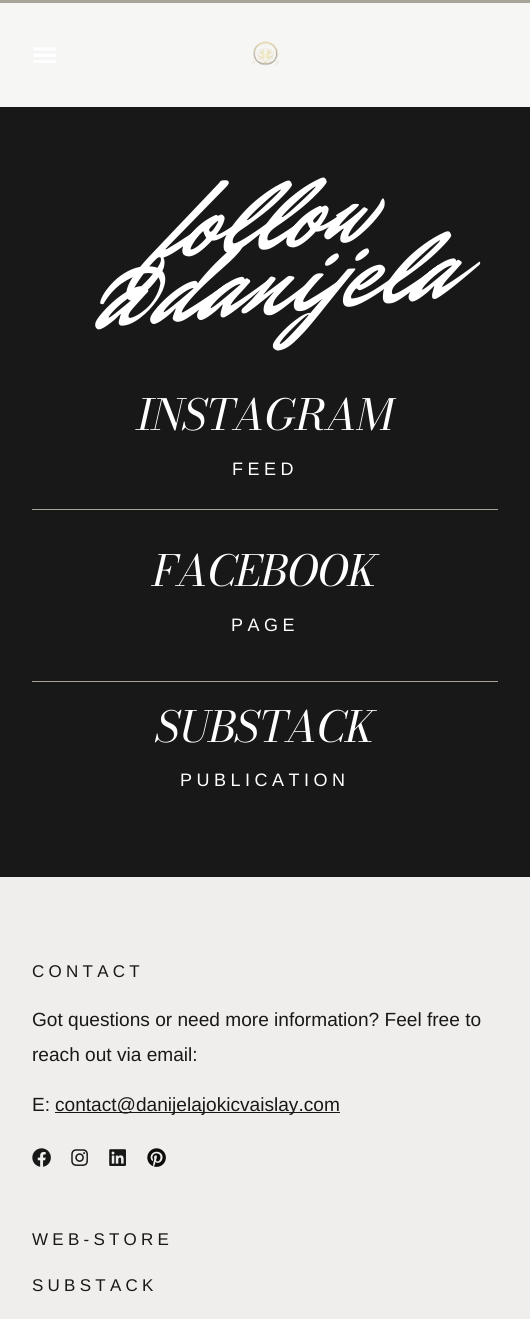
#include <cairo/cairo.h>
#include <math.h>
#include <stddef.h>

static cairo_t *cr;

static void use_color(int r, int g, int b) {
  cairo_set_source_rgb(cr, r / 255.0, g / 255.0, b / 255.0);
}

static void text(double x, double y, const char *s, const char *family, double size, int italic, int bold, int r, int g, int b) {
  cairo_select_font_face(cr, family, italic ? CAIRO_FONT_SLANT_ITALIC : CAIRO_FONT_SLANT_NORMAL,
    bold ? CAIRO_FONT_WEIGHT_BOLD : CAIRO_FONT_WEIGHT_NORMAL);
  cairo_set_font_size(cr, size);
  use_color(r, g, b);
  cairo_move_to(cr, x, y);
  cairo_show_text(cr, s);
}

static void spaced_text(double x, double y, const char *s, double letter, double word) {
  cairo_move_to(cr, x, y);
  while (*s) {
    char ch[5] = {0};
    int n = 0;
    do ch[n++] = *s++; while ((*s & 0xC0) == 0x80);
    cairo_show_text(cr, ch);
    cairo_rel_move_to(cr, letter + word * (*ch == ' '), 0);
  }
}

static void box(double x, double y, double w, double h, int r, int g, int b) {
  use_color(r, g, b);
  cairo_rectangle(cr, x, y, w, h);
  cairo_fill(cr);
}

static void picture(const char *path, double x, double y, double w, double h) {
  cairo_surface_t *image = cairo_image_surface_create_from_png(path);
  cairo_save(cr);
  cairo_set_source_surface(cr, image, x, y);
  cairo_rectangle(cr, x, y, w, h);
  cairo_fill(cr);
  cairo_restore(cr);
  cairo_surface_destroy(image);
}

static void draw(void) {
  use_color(246, 246, 245);
  cairo_paint(cr);
  box(0, 0, 530, 3, 169, 163, 153);
  picture("img_01.png", 33, 47, 24, 16);
  picture("img_02.png", 252, 41, 27, 25);
  box(0, 107, 530, 770, 24, 24, 24);
  box(32, 509, 466, 1, 169, 163, 153);
  box(32, 681, 466, 1, 169, 163, 153);
  box(0, 877, 530, 442, 239, 238, 236);
  box(55, 1112, 285, 1, 24, 24, 24);
  picture("img_03.png", 32, 1148, 19, 19);
  picture("img_04.png", 71, 1149, 17, 17);
  picture("img_05.png", 109, 1149, 17, 17);
  picture("img_06.png", 147, 1148, 19, 19);
  cairo_save(cr);
  cairo_translate(cr, 159, 257);
  cairo_rotate(cr, -5 * M_PI / 180);
  text(0, 0, "follow", "Mr Dafoe", 106, 1, 0, 255, 255, 255);
  cairo_restore(cr);
  cairo_save(cr);
  cairo_translate(cr, 86, 328);
  cairo_rotate(cr, -5 * M_PI / 180);
  text(0, 0, "@danijela", "Mr Dafoe", 106, 1, 0, 255, 255, 255);
  cairo_restore(cr);
  text(137, 430, "INSTAGRAM", "Bodoni Moda", 42.5, 1, 0, 255, 255, 255);
  cairo_select_font_face(cr, "Liberation Sans", CAIRO_FONT_SLANT_NORMAL, CAIRO_FONT_WEIGHT_NORMAL);
  cairo_set_font_size(cr, 18);
  spaced_text(232, 475, "FEED", 4.5, 0);
  text(153, 586, "FACEBOOK", "Bodoni Moda", 42.5, 1, 0, 255, 255, 255);
  cairo_select_font_face(cr, "Liberation Sans", CAIRO_FONT_SLANT_NORMAL, CAIRO_FONT_WEIGHT_NORMAL);
  cairo_set_font_size(cr, 18);
  spaced_text(231, 631, "PAGE", 4.5, 0);
  text(156, 742, "SUBSTACK", "Bodoni Moda", 42.5, 1, 0, 255, 255, 255);
  cairo_select_font_face(cr, "Liberation Sans", CAIRO_FONT_SLANT_NORMAL, CAIRO_FONT_WEIGHT_NORMAL);
  cairo_set_font_size(cr, 18);
  spaced_text(180, 786, "PUBLICATION", 4.5, 0);
  cairo_set_font_size(cr, 17);
  use_color(24, 24, 24);
  spaced_text(32, 977, "CONTACT", 4.25, 0);
  text(32, 1026, "Got questions or need more information? Feel free to", "Liberation Sans", 19.1, 0, 0, 24, 24, 24);
  text(32, 1061, "reach out via email:", "Liberation Sans", 19.1, 0, 0, 24, 24, 24);
  text(32, 1111, "E:", "Liberation Sans", 19.1, 0, 0, 24, 24, 24);
  text(55, 1111, "contact@danijelajokicvaislay.com", "Liberation Sans", 19.1, 0, 0, 24, 24, 24);
  cairo_set_font_size(cr, 17);
  spaced_text(32, 1245, "WEB-STORE", 4.25, 0);
  spaced_text(32, 1291, "SUBSTACK", 4.25, 0);
}

int main(void) {
  cairo_surface_t *surface = cairo_image_surface_create(CAIRO_FORMAT_RGB24, 530, 1319);
  cr = cairo_create(surface);
  cairo_font_options_t *options = cairo_font_options_create();
  cairo_font_options_set_hint_metrics(options, CAIRO_HINT_METRICS_OFF);
  cairo_font_options_set_hint_style(options, CAIRO_HINT_STYLE_NONE);
  cairo_set_font_options(cr, options);
  cairo_set_miter_limit(cr, 4);
  draw();
  cairo_surface_write_to_png(surface, "out.png");
  cairo_font_options_destroy(options);
  cairo_destroy(cr);
  cairo_surface_destroy(surface);
  return 0;
}
